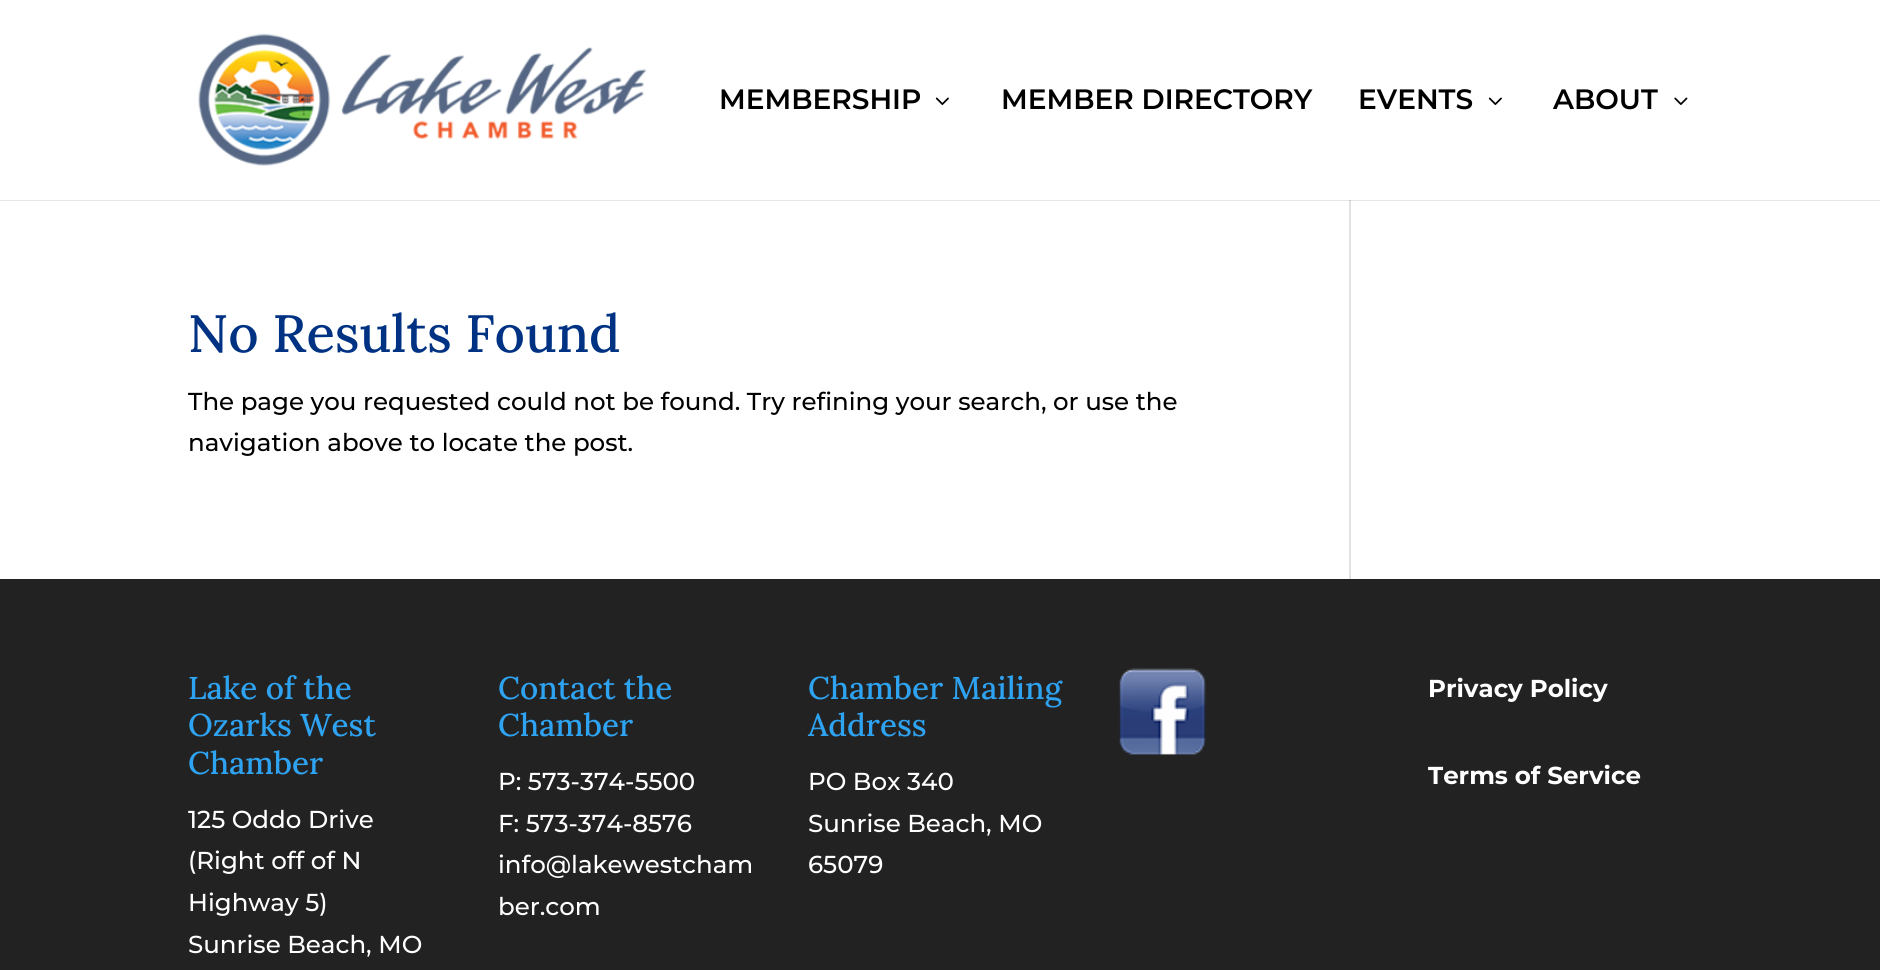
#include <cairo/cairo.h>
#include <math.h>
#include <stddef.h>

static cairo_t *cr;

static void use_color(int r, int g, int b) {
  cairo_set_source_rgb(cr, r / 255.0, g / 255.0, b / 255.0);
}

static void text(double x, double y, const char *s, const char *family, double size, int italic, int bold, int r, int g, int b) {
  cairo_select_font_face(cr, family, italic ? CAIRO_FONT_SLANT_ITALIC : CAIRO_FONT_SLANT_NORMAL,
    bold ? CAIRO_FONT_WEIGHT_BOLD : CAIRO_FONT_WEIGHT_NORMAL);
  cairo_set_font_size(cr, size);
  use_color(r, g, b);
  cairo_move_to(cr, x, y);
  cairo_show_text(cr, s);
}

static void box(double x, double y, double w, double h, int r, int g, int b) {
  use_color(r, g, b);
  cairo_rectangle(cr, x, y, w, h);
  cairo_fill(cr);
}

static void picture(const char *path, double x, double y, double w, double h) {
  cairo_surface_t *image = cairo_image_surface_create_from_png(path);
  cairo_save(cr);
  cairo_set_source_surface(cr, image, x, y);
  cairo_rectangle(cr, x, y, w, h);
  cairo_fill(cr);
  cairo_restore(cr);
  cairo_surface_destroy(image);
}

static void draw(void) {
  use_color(255, 255, 255);
  cairo_paint(cr);
  box(0, 200, 1880, 1, 230, 230, 230);
  picture("img_01.png", 198, 33, 449, 133);
  picture("img_02.png", 935, 97, 14, 8);
  picture("img_02.png", 1488, 97, 14, 8);
  picture("img_03.png", 1674, 97, 14, 8);
  box(1349, 200, 2, 379, 226, 226, 226);
  box(1349, 200, 2, 1, 203, 203, 203);
  box(0, 579, 1880, 391, 34, 34, 34);
  picture("img_04.png", 1119, 668, 87, 87);
  text(719, 109, "MEMBERSHIP", "Montserrat SemiBold", 28, 0, 0, 0, 0, 0);
  text(1001, 109, "MEMBER DIRECTORY", "Montserrat SemiBold", 28, 0, 0, 0, 0, 0);
  text(1358, 109, "EVENTS", "Montserrat SemiBold", 28, 0, 0, 0, 0, 0);
  text(1553, 109, "ABOUT", "Montserrat SemiBold", 28, 0, 0, 0, 0, 0);
  text(188, 352, "No Results Found", "Lora Medium", 52.5, 0, 0, 0, 50, 132);
  text(188, 410, "The page you requested could not be found. Try refining your search, or use the", "Montserrat Medium", 24.5, 0, 0, 0, 0, 0);
  text(188, 451, "navigation above to locate the post.", "Montserrat Medium", 24.5, 0, 0, 0, 0, 0);
  text(188, 699, "Lake of the", "Lora Medium", 31.5, 0, 0, 46, 163, 242);
  text(188, 736, "Ozarks West", "Lora Medium", 31.5, 0, 0, 46, 163, 242);
  text(188, 774, "Chamber", "Lora Medium", 31.5, 0, 0, 46, 163, 242);
  text(188, 828, "125 Oddo Drive", "Montserrat Medium", 24.5, 0, 0, 255, 255, 255);
  text(188, 869, "(Right off of N", "Montserrat Medium", 24.5, 0, 0, 255, 255, 255);
  text(188, 911, "Highway 5)", "Montserrat Medium", 24.5, 0, 0, 255, 255, 255);
  text(188, 953, "Sunrise Beach, MO", "Montserrat Medium", 24.5, 0, 0, 255, 255, 255);
  text(498, 699, "Contact the", "Lora Medium", 31.5, 0, 0, 46, 163, 242);
  text(498, 736, "Chamber", "Lora Medium", 31.5, 0, 0, 46, 163, 242);
  text(498, 790, "P: 573-374-5500", "Montserrat Medium", 24.5, 0, 0, 255, 255, 255);
  text(498, 832, "F: 573-374-8576", "Montserrat Medium", 24.5, 0, 0, 255, 255, 255);
  text(498, 873, "info@lakewestcham", "Montserrat Medium", 24.5, 0, 0, 255, 255, 255);
  text(498, 915, "ber.com", "Montserrat Medium", 24.5, 0, 0, 255, 255, 255);
  text(808, 699, "Chamber Mailing", "Lora Medium", 31.5, 0, 0, 46, 163, 242);
  text(808, 736, "Address", "Lora Medium", 31.5, 0, 0, 46, 163, 242);
  text(808, 790, "PO Box 340", "Montserrat Medium", 24.5, 0, 0, 255, 255, 255);
  text(808, 832, "Sunrise Beach, MO", "Montserrat Medium", 24.5, 0, 0, 255, 255, 255);
  text(808, 873, "65079", "Montserrat Medium", 24.5, 0, 0, 255, 255, 255);
  text(1428, 697, "Privacy Policy", "Montserrat", 24.5, 0, 1, 255, 255, 255);
  text(1428, 784, "Terms of Service", "Montserrat", 24.5, 0, 1, 255, 255, 255);
}

int main(void) {
  cairo_surface_t *surface = cairo_image_surface_create(CAIRO_FORMAT_RGB24, 1880, 970);
  cr = cairo_create(surface);
  cairo_font_options_t *options = cairo_font_options_create();
  cairo_font_options_set_hint_metrics(options, CAIRO_HINT_METRICS_OFF);
  cairo_font_options_set_hint_style(options, CAIRO_HINT_STYLE_NONE);
  cairo_set_font_options(cr, options);
  cairo_set_miter_limit(cr, 4);
  draw();
  cairo_surface_write_to_png(surface, "out.png");
  cairo_font_options_destroy(options);
  cairo_destroy(cr);
  cairo_surface_destroy(surface);
  return 0;
}
